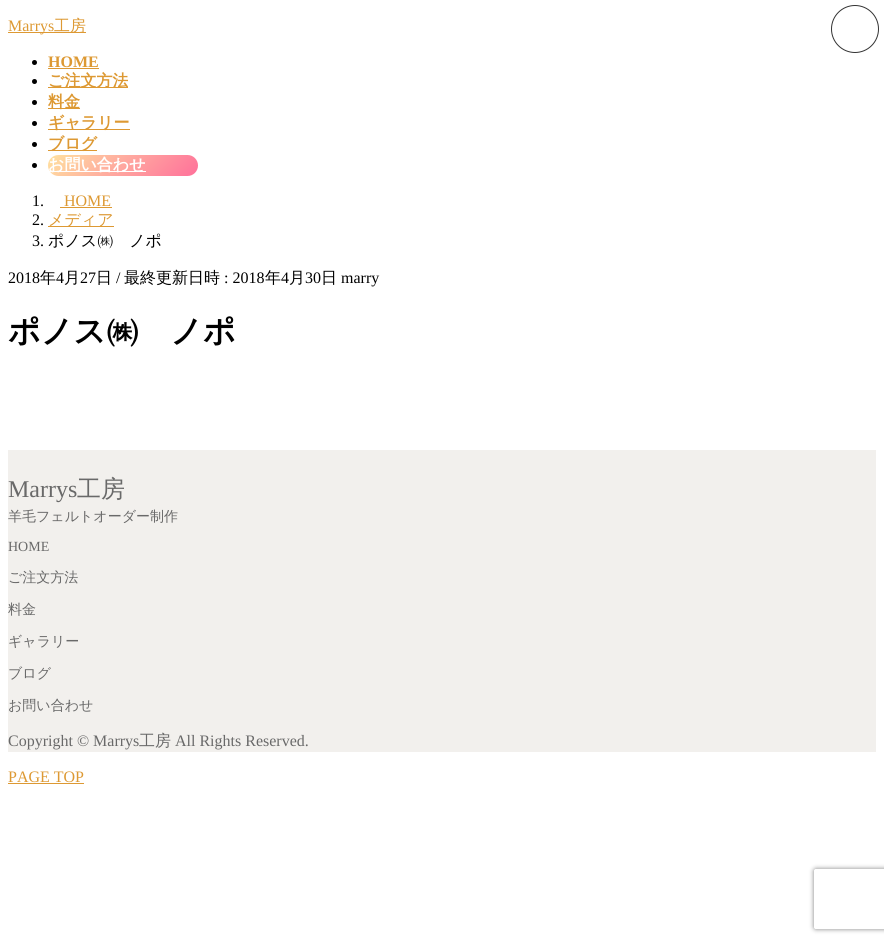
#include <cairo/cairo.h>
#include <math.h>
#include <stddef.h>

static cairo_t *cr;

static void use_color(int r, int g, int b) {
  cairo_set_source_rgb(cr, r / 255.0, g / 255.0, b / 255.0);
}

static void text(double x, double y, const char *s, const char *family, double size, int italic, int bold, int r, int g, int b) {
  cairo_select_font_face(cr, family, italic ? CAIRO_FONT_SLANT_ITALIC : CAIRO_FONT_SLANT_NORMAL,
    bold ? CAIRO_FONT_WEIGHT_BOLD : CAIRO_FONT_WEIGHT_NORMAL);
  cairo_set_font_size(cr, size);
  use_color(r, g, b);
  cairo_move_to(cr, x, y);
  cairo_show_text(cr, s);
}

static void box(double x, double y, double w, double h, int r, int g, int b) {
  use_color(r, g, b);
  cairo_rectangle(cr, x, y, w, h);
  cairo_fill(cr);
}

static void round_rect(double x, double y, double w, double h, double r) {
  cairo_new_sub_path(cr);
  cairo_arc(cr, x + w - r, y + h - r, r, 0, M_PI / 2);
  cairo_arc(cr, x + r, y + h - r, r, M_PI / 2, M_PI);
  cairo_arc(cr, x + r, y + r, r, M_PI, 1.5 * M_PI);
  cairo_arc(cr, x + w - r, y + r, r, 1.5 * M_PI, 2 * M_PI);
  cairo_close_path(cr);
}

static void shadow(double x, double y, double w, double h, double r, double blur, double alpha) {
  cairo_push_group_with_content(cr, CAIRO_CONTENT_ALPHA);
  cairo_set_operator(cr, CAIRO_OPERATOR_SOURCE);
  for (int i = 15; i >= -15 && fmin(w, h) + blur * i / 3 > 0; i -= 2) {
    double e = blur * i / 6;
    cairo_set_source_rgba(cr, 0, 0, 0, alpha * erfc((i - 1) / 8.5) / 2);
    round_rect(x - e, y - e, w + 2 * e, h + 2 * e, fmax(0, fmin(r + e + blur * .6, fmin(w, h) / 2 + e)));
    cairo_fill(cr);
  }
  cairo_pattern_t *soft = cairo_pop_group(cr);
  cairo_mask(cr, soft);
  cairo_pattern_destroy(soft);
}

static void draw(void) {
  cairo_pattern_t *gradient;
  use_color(255, 255, 255);
  cairo_paint(cr);
  box(8, 32, 78, 1, 221, 153, 51);
  use_color(0, 0, 0);
  cairo_arc(cr, 34.5, 62.5, 2.5, 0, 2 * M_PI);
  cairo_fill(cr);
  box(48, 68, 51, 1, 221, 153, 51);
  use_color(0, 0, 0);
  cairo_arc(cr, 34.5, 81.5, 2.5, 0, 2 * M_PI);
  cairo_fill(cr);
  box(48, 87, 80, 1, 221, 153, 51);
  use_color(0, 0, 0);
  cairo_arc(cr, 34.5, 102.5, 2.5, 0, 2 * M_PI);
  cairo_fill(cr);
  box(48, 108, 32, 1, 221, 153, 51);
  use_color(0, 0, 0);
  cairo_arc(cr, 34.5, 123.5, 2.5, 0, 2 * M_PI);
  cairo_fill(cr);
  box(48, 129, 82, 1, 221, 153, 51);
  use_color(0, 0, 0);
  cairo_arc(cr, 34.5, 144.5, 2.5, 0, 2 * M_PI);
  cairo_fill(cr);
  box(48, 150, 49, 1, 221, 153, 51);
  gradient = cairo_pattern_create_linear(80, 123, 166, 208);
  cairo_pattern_add_color_stop_rgba(gradient, 0, 1, 0.886, 0.624, 1);
  cairo_pattern_add_color_stop_rgba(gradient, 0.48, 1, 0.663, 0.624, 1);
  cairo_pattern_add_color_stop_rgba(gradient, 1, 1, 0.443, 0.604, 1);
  cairo_set_source(cr, gradient);
  cairo_pattern_destroy(gradient);
  round_rect(48, 155, 150, 21, 10.5);
  cairo_fill(cr);
  use_color(0, 0, 0);
  cairo_arc(cr, 34.5, 165.5, 2.5, 0, 2 * M_PI);
  cairo_fill(cr);
  box(48, 171, 98, 1, 255, 255, 255);
  cairo_arc(cr, 855, 29, 23.5, 0, 2 * M_PI);
  use_color(51, 51, 51);
  cairo_set_line_width(cr, 1);
  cairo_stroke(cr);
  box(60, 207, 52, 1, 221, 153, 51);
  box(48, 226, 66, 1, 221, 153, 51);
  box(8, 450, 868, 302, 242, 240, 237);
  box(8, 783, 76, 1, 221, 153, 51);
  cairo_save(cr);
  cairo_set_fill_rule(cr, CAIRO_FILL_RULE_EVEN_ODD);
  cairo_new_path(cr);
  cairo_move_to(cr, 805, 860);
  cairo_line_to(cr, 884, 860);
  cairo_line_to(cr, 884, 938);
  cairo_line_to(cr, 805, 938);
  cairo_close_path(cr);
  cairo_move_to(cr, 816, 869);
  cairo_line_to(cr, 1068, 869);
  cairo_curve_to(cr, 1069, 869, 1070, 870, 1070, 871);
  cairo_line_to(cr, 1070, 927);
  cairo_curve_to(cr, 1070, 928, 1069, 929, 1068, 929);
  cairo_line_to(cr, 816, 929);
  cairo_curve_to(cr, 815, 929, 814, 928, 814, 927);
  cairo_line_to(cr, 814, 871);
  cairo_curve_to(cr, 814, 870, 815, 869, 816, 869);
  cairo_close_path(cr);
  cairo_clip(cr);
  use_color(128, 128, 128);
  shadow(814, 869, 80, 60, 2, 2.5, 1);
  cairo_restore(cr);
  text(8, 31, "Marrys", "Liberation Serif", 16, 0, 0, 221, 153, 51);
  text(54, 31, "工房", "WenQuanYi Zen Hei Medium", 16, 0, 0, 221, 153, 51);
  text(48, 67, "HOME", "Liberation Serif", 16, 0, 1, 221, 153, 51);
  text(48, 86, "ご注文方法", "WenQuanYi Zen Hei", 16, 0, 1, 221, 153, 51);
  text(48, 107, "料金", "WenQuanYi Zen Hei", 16, 0, 1, 221, 153, 51);
  text(48, 128, "ギャラリー", "WenQuanYi Zen Hei", 16, 0, 1, 221, 153, 51);
  text(48, 149, "ブログ", "WenQuanYi Zen Hei", 16, 0, 1, 221, 153, 51);
  text(48, 170, "お問い合わせ", "WenQuanYi Zen Hei", 16, 0, 1, 255, 255, 255);
  text(32, 206, "1.", "Liberation Serif", 16, 0, 0, 0, 0, 0);
  text(64, 206, "HOME", "Liberation Serif", 16, 0, 0, 221, 153, 51);
  text(32, 225, "2.", "Liberation Serif", 16, 0, 0, 0, 0, 0);
  text(48, 225, "メディア", "WenQuanYi Zen Hei Medium", 16, 0, 0, 221, 153, 51);
  text(32, 246, "3.", "Liberation Serif", 16, 0, 0, 0, 0, 0);
  text(48, 246, "ポノス㈱　ノポ", "WenQuanYi Zen Hei Medium", 16, 0, 0, 0, 0, 0);
  text(8, 283, "2018", "Liberation Serif", 16, 0, 0, 0, 0, 0);
  text(40, 283, "年", "WenQuanYi Zen Hei Medium", 16, 0, 0, 0, 0, 0);
  text(56, 283, "4", "Liberation Serif", 16, 0, 0, 0, 0, 0);
  text(64, 283, "月", "WenQuanYi Zen Hei Medium", 16, 0, 0, 0, 0, 0);
  text(80, 283, "27", "Liberation Serif", 16, 0, 0, 0, 0, 0);
  text(96, 283, "日", "WenQuanYi Zen Hei Medium", 16, 0, 0, 0, 0, 0);
  text(116, 283, "/", "Liberation Serif", 16, 0, 0, 0, 0, 0);
  text(124, 283, "最終更新日時", "WenQuanYi Zen Hei Medium", 16, 0, 0, 0, 0, 0);
  text(224, 283, ": 2018", "Liberation Serif", 16, 0, 0, 0, 0, 0);
  text(265, 283, "年", "WenQuanYi Zen Hei Medium", 16, 0, 0, 0, 0, 0);
  text(281, 283, "4", "Liberation Serif", 16, 0, 0, 0, 0, 0);
  text(289, 283, "月", "WenQuanYi Zen Hei Medium", 16, 0, 0, 0, 0, 0);
  text(305, 283, "30", "Liberation Serif", 16, 0, 0, 0, 0, 0);
  text(321, 283, "日", "WenQuanYi Zen Hei Medium", 16, 0, 0, 0, 0, 0);
  text(341, 283, "marry", "Liberation Serif", 16, 0, 0, 0, 0, 0);
  text(8, 342, "ポノス㈱　ノポ", "WenQuanYi Zen Hei", 32, 0, 1, 0, 0, 0);
  text(8, 497, "Marrys", "Liberation Serif", 24, 0, 0, 105, 105, 105);
  text(77, 497, "工房", "WenQuanYi Zen Hei Medium", 24, 0, 0, 105, 105, 105);
  text(8, 521, "羊毛フェルトオーダー制作", "WenQuanYi Zen Hei Medium", 14, 0, 0, 105, 105, 105);
  text(8, 551, "HOME", "Liberation Serif", 14, 0, 0, 105, 105, 105);
  text(8, 582, "ご注文方法", "WenQuanYi Zen Hei Medium", 14, 0, 0, 105, 105, 105);
  text(8, 614, "料金", "WenQuanYi Zen Hei Medium", 14, 0, 0, 105, 105, 105);
  text(8, 646, "ギャラリー", "WenQuanYi Zen Hei Medium", 14, 0, 0, 105, 105, 105);
  text(8, 678, "ブログ", "WenQuanYi Zen Hei Medium", 14, 0, 0, 105, 105, 105);
  text(8, 710, "お問い合わせ", "WenQuanYi Zen Hei Medium", 14, 0, 0, 105, 105, 105);
  text(8, 746, "Copyright © Marrys", "Liberation Serif", 16, 0, 0, 105, 105, 105);
  text(139, 746, "工房", "WenQuanYi Zen Hei Medium", 16, 0, 0, 105, 105, 105);
  text(175, 746, "All Rights Reserved.", "Liberation Serif", 16, 0, 0, 105, 105, 105);
  text(8, 782, "PAGE TOP", "Liberation Serif", 16, 0, 0, 221, 153, 51);
}

int main(void) {
  cairo_surface_t *surface = cairo_image_surface_create(CAIRO_FORMAT_RGB24, 884, 943);
  cr = cairo_create(surface);
  cairo_font_options_t *options = cairo_font_options_create();
  cairo_font_options_set_hint_metrics(options, CAIRO_HINT_METRICS_OFF);
  cairo_font_options_set_hint_style(options, CAIRO_HINT_STYLE_NONE);
  cairo_set_font_options(cr, options);
  cairo_set_miter_limit(cr, 4);
  draw();
  cairo_surface_write_to_png(surface, "out.png");
  cairo_font_options_destroy(options);
  cairo_destroy(cr);
  cairo_surface_destroy(surface);
  return 0;
}
